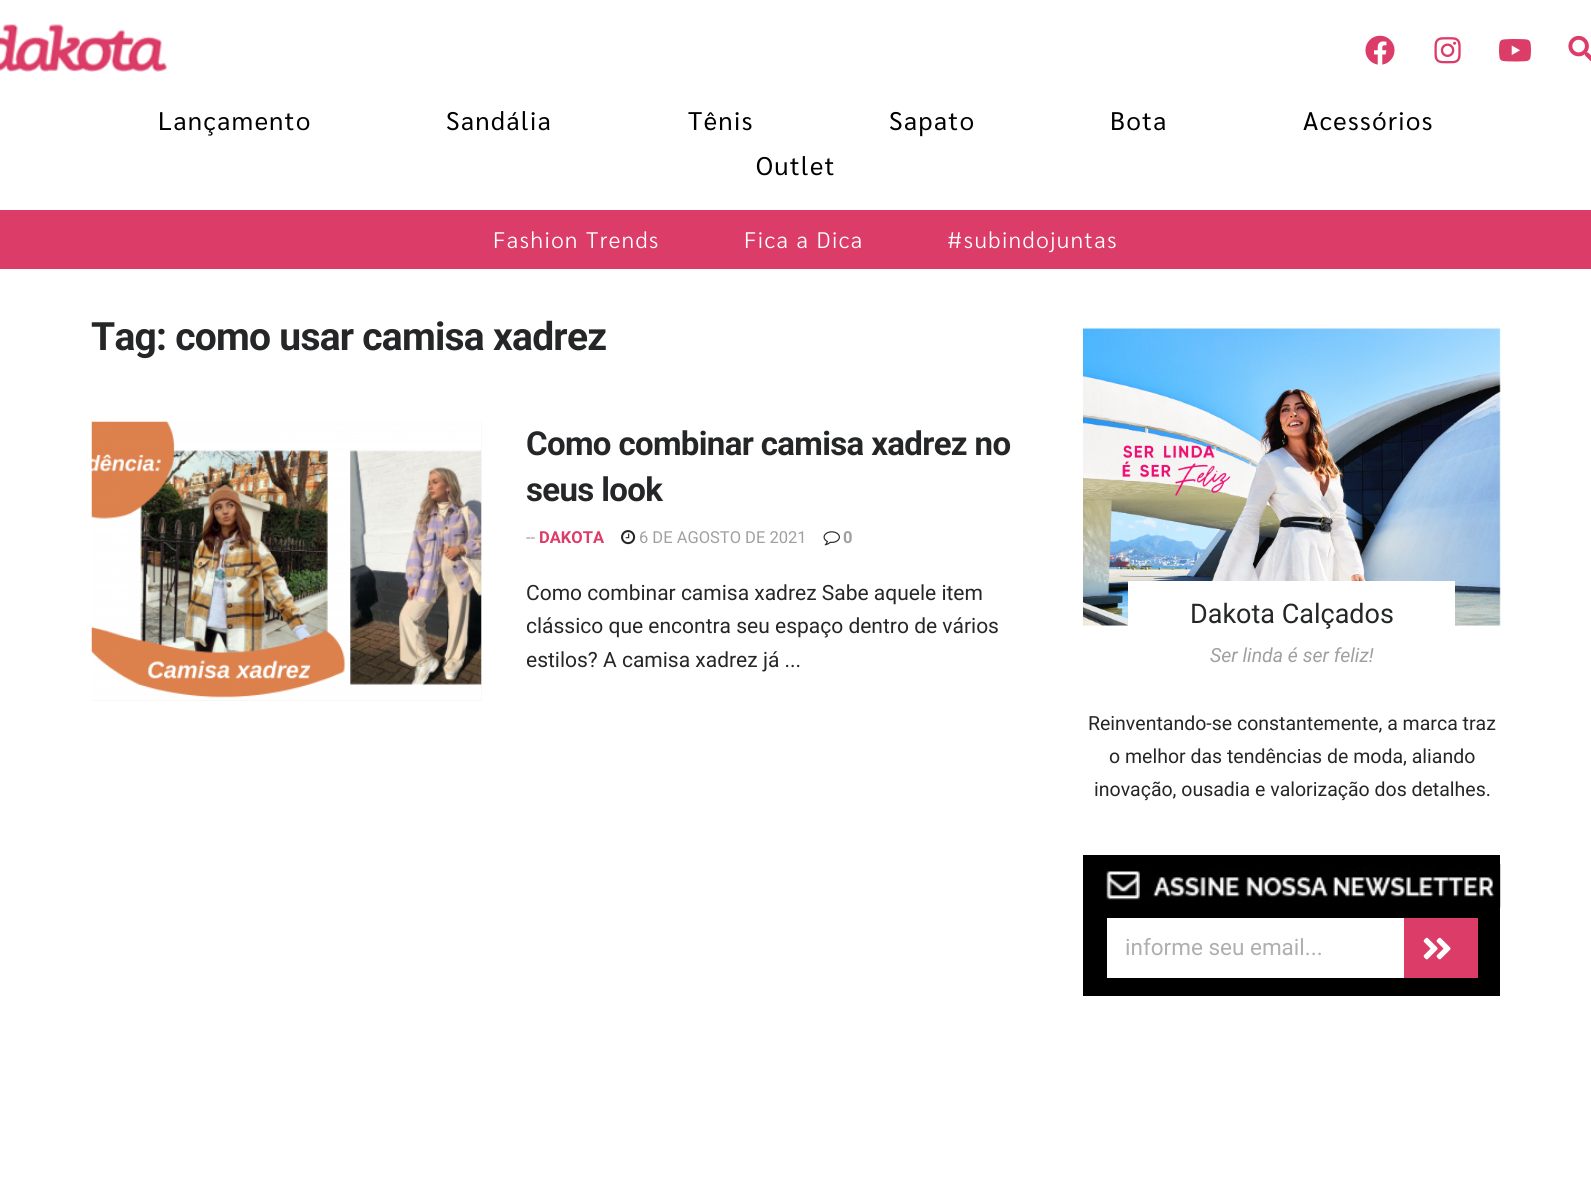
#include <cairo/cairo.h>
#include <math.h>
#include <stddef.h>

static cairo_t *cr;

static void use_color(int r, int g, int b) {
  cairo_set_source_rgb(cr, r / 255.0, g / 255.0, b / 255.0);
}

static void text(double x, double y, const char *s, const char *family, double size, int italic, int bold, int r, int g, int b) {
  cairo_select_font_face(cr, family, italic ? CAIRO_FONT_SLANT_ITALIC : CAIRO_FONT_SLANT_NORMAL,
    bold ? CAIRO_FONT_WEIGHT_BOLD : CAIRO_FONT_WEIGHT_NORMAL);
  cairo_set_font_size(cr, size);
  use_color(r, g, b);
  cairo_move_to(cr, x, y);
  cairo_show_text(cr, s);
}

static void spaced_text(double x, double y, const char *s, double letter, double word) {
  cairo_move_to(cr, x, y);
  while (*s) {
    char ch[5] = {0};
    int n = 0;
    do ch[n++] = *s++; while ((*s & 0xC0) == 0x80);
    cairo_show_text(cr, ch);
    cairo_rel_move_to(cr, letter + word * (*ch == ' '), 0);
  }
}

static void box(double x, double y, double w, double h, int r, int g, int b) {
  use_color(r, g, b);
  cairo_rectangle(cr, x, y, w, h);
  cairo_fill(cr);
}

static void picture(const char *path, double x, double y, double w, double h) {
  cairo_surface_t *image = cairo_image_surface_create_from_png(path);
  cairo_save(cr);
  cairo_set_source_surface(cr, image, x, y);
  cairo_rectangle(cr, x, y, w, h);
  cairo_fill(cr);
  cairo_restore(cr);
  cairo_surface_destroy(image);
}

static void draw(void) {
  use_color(255, 255, 255);
  cairo_paint(cr);
  picture("img_01.png", 0, 24, 167, 48);
  picture("img_02.png", 1365, 35, 30, 30);
  picture("img_03.png", 1434, 37, 27, 27);
  picture("img_04.png", 1499, 39, 32, 23);
  picture("img_05.png", 1568, 35, 23, 26);
  box(0, 210, 1591, 59, 219, 61, 104);
  box(92, 422, 390, 279, 247, 247, 247);
  picture("img_06.png", 91, 421, 391, 279);
  picture("img_07.png", 621, 530, 15, 15);
  picture("img_08.png", 823, 531, 17, 15);
  picture("img_09.png", 1083, 328, 418, 298);
  box(1128, 581, 327, 45, 255, 255, 255);
  box(1083, 855, 417, 141, 0, 0, 0);
  picture("img_10.png", 1106, 864, 395, 44);
  box(1107, 918, 297, 60, 255, 255, 255);
  box(1404, 918, 74, 60, 219, 61, 104);
  picture("img_11.png", 1423, 937, 28, 23);
  cairo_select_font_face(cr, "Sarabun", CAIRO_FONT_SLANT_NORMAL, CAIRO_FONT_WEIGHT_NORMAL);
  cairo_set_font_size(cr, 25.5);
  use_color(0, 0, 0);
  spaced_text(158, 130, "Lançamento", 1.5, 0);
  spaced_text(446, 130, "Sandália", 1.5, 0);
  spaced_text(688, 130, "Tênis", 1.5, 0);
  spaced_text(889, 130, "Sapato", 1.5, 0);
  spaced_text(1110, 130, "Bota", 1.5, 0);
  spaced_text(1303, 130, "Acessórios", 1.5, 0);
  spaced_text(756, 175, "Outlet", 1.5, 0);
  cairo_select_font_face(cr, "Sarabun Light", CAIRO_FONT_SLANT_NORMAL, CAIRO_FONT_WEIGHT_NORMAL);
  cairo_set_font_size(cr, 22.5);
  use_color(255, 255, 255);
  spaced_text(493, 248, "Fashion Trends", 1.5, 0);
  spaced_text(744, 248, "Fica a Dica", 1.5, 0);
  spaced_text(947, 248, "#subindojuntas", 1.5, 0);
  cairo_select_font_face(cr, "Roboto", CAIRO_FONT_SLANT_NORMAL, CAIRO_FONT_WEIGHT_BOLD);
  cairo_set_font_size(cr, 39);
  use_color(37, 38, 39);
  spaced_text(91, 350, "Tag: como usar camisa xadrez", -0.75, 0);
  cairo_set_font_size(cr, 33);
  spaced_text(526, 455, "Como combinar camisa xadrez no", -0.65, 0);
  spaced_text(526, 501, "seus look", -0.65, 0);
  text(526, 543, "--", "Roboto", 16.5, 0, 0, 160, 160, 160);
  text(539, 543, "DAKOTA", "Roboto", 16.5, 0, 1, 219, 61, 104);
  text(639, 543, "6 DE AGOSTO DE 2021", "Roboto", 16.5, 0, 0, 160, 160, 160);
  text(843, 543, "0", "Roboto", 16.5, 0, 1, 160, 160, 160);
  text(526, 600, "Como combinar camisa xadrez Sabe aquele item", "Roboto", 21, 0, 0, 37, 38, 39);
  cairo_save(cr);
  cairo_rectangle(cr, 527, 422, 489, 255);
  cairo_clip(cr);
  text(526, 633, "clássico que encontra seu espaço dentro de vários", "Roboto", 21, 0, 0, 37, 38, 39);
  text(526, 667, "estilos? A camisa xadrez já ...", "Roboto", 21, 0, 0, 37, 38, 39);
  cairo_restore(cr);
  text(1190, 623, "Dakota Calçados", "Roboto", 27, 0, 0, 37, 38, 39);
  text(1210, 662, "Ser linda é ser feliz!", "Roboto", 19.5, 1, 0, 160, 160, 160);
  text(1088, 730, "Reinventando-se constantemente, a marca traz", "Roboto", 19.5, 0, 0, 37, 38, 39);
  text(1109, 763, "o melhor das tendências de moda, aliando", "Roboto", 19.5, 0, 0, 37, 38, 39);
  text(1094, 796, "inovação, ousadia e valorização dos detalhes.", "Roboto", 19.5, 0, 0, 37, 38, 39);
  text(1125, 955, "informe seu email...", "Roboto", 22.5, 0, 0, 175, 175, 175);
}

int main(void) {
  cairo_surface_t *surface = cairo_image_surface_create(CAIRO_FORMAT_RGB24, 1591, 1196);
  cr = cairo_create(surface);
  cairo_font_options_t *options = cairo_font_options_create();
  cairo_font_options_set_hint_metrics(options, CAIRO_HINT_METRICS_OFF);
  cairo_font_options_set_hint_style(options, CAIRO_HINT_STYLE_NONE);
  cairo_set_font_options(cr, options);
  cairo_set_miter_limit(cr, 4);
  draw();
  cairo_surface_write_to_png(surface, "out.png");
  cairo_font_options_destroy(options);
  cairo_destroy(cr);
  cairo_surface_destroy(surface);
  return 0;
}
